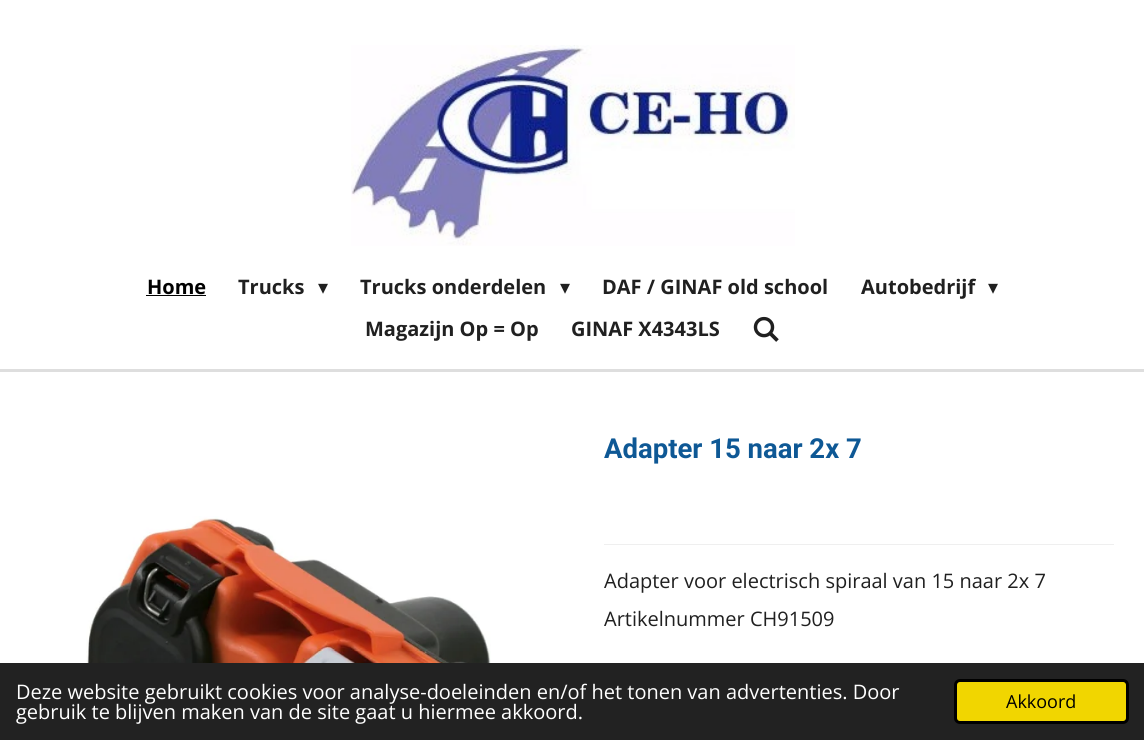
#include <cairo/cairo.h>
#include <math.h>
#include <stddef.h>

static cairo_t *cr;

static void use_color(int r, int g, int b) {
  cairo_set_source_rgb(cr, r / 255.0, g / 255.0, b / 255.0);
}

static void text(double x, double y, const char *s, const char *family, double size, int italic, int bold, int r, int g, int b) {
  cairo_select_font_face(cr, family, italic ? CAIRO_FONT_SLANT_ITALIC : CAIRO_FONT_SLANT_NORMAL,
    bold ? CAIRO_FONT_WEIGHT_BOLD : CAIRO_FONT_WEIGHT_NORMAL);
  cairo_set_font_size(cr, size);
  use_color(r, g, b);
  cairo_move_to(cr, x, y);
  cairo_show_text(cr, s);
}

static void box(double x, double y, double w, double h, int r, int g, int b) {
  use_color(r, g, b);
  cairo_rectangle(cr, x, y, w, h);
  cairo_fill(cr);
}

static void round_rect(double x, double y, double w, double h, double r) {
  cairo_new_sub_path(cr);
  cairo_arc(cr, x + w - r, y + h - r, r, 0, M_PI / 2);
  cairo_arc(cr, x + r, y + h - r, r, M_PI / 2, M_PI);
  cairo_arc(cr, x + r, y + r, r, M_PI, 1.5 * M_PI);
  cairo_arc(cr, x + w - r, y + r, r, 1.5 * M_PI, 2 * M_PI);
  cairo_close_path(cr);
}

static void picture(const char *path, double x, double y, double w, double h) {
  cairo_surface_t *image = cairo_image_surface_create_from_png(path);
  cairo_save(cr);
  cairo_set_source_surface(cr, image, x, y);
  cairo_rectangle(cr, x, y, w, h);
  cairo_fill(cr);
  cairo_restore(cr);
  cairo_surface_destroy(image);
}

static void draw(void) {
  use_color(255, 255, 255);
  cairo_paint(cr);
  picture("img_01.png", 351, 45, 444, 201);
  box(146, 295, 60, 1, 0, 0, 0);
  picture("img_02.png", 753, 316, 26, 26);
  box(0, 369, 1144, 3, 222, 222, 222);
  picture("img_03.png", 86, 516, 405, 147);
  box(604, 544, 510, 1, 239, 239, 239);
  box(0, 663, 1144, 77, 34, 34, 34);
  use_color(241, 214, 0);
  round_rect(955.5, 680.5, 172, 42, 4.5);
  cairo_fill_preserve(cr);
  use_color(0, 0, 0);
  cairo_set_line_width(cr, 3);
  cairo_stroke(cr);
  text(147, 294, "Home", "Open Sans", 20, 0, 1, 0, 0, 0);
  text(238, 294, "Trucks", "Open Sans", 20, 0, 1, 32, 32, 32);
  text(318, 294, "▾", "DejaVu Sans", 20, 0, 0, 32, 32, 32);
  text(360, 294, "Trucks onderdelen", "Open Sans", 20, 0, 1, 32, 32, 32);
  text(560, 294, "▾", "DejaVu Sans", 20, 0, 0, 32, 32, 32);
  text(602, 294, "DAF / GINAF old school", "Open Sans", 20, 0, 1, 32, 32, 32);
  text(861, 294, "Autobedrijf", "Open Sans", 20, 0, 1, 32, 32, 32);
  text(988, 294, "▾", "DejaVu Sans", 20, 0, 0, 32, 32, 32);
  text(365, 336, "Magazijn Op = Op", "Open Sans", 20, 0, 1, 32, 32, 32);
  text(571, 336, "GINAF X4343LS", "Open Sans", 20, 0, 1, 32, 32, 32);
  text(604, 458, "Adapter 15 naar 2x 7", "Roboto", 27.5, 0, 1, 14, 88, 149);
  text(604, 588, "Adapter voor electrisch spiraal van 15 naar 2x 7", "Open Sans", 20, 0, 0, 32, 32, 32);
  text(604, 626, "Artikelnummer CH91509", "Open Sans", 20, 0, 0, 32, 32, 32);
  text(16, 699, "Deze website gebruikt cookies voor analyse-doeleinden en/of het tonen van advertenties. Door", "Open Sans", 20, 0, 0, 255, 255, 255);
  text(16, 719, "gebruik te blijven maken van de site gaat u hiermee akkoord.", "Open Sans", 20, 0, 0, 255, 255, 255);
  text(1006, 708, "Akkoord", "Open Sans", 18, 0, 0, 0, 0, 0);
}

int main(void) {
  cairo_surface_t *surface = cairo_image_surface_create(CAIRO_FORMAT_RGB24, 1144, 740);
  cr = cairo_create(surface);
  cairo_font_options_t *options = cairo_font_options_create();
  cairo_font_options_set_hint_metrics(options, CAIRO_HINT_METRICS_OFF);
  cairo_font_options_set_hint_style(options, CAIRO_HINT_STYLE_NONE);
  cairo_set_font_options(cr, options);
  cairo_set_miter_limit(cr, 4);
  draw();
  cairo_surface_write_to_png(surface, "out.png");
  cairo_font_options_destroy(options);
  cairo_destroy(cr);
  cairo_surface_destroy(surface);
  return 0;
}
